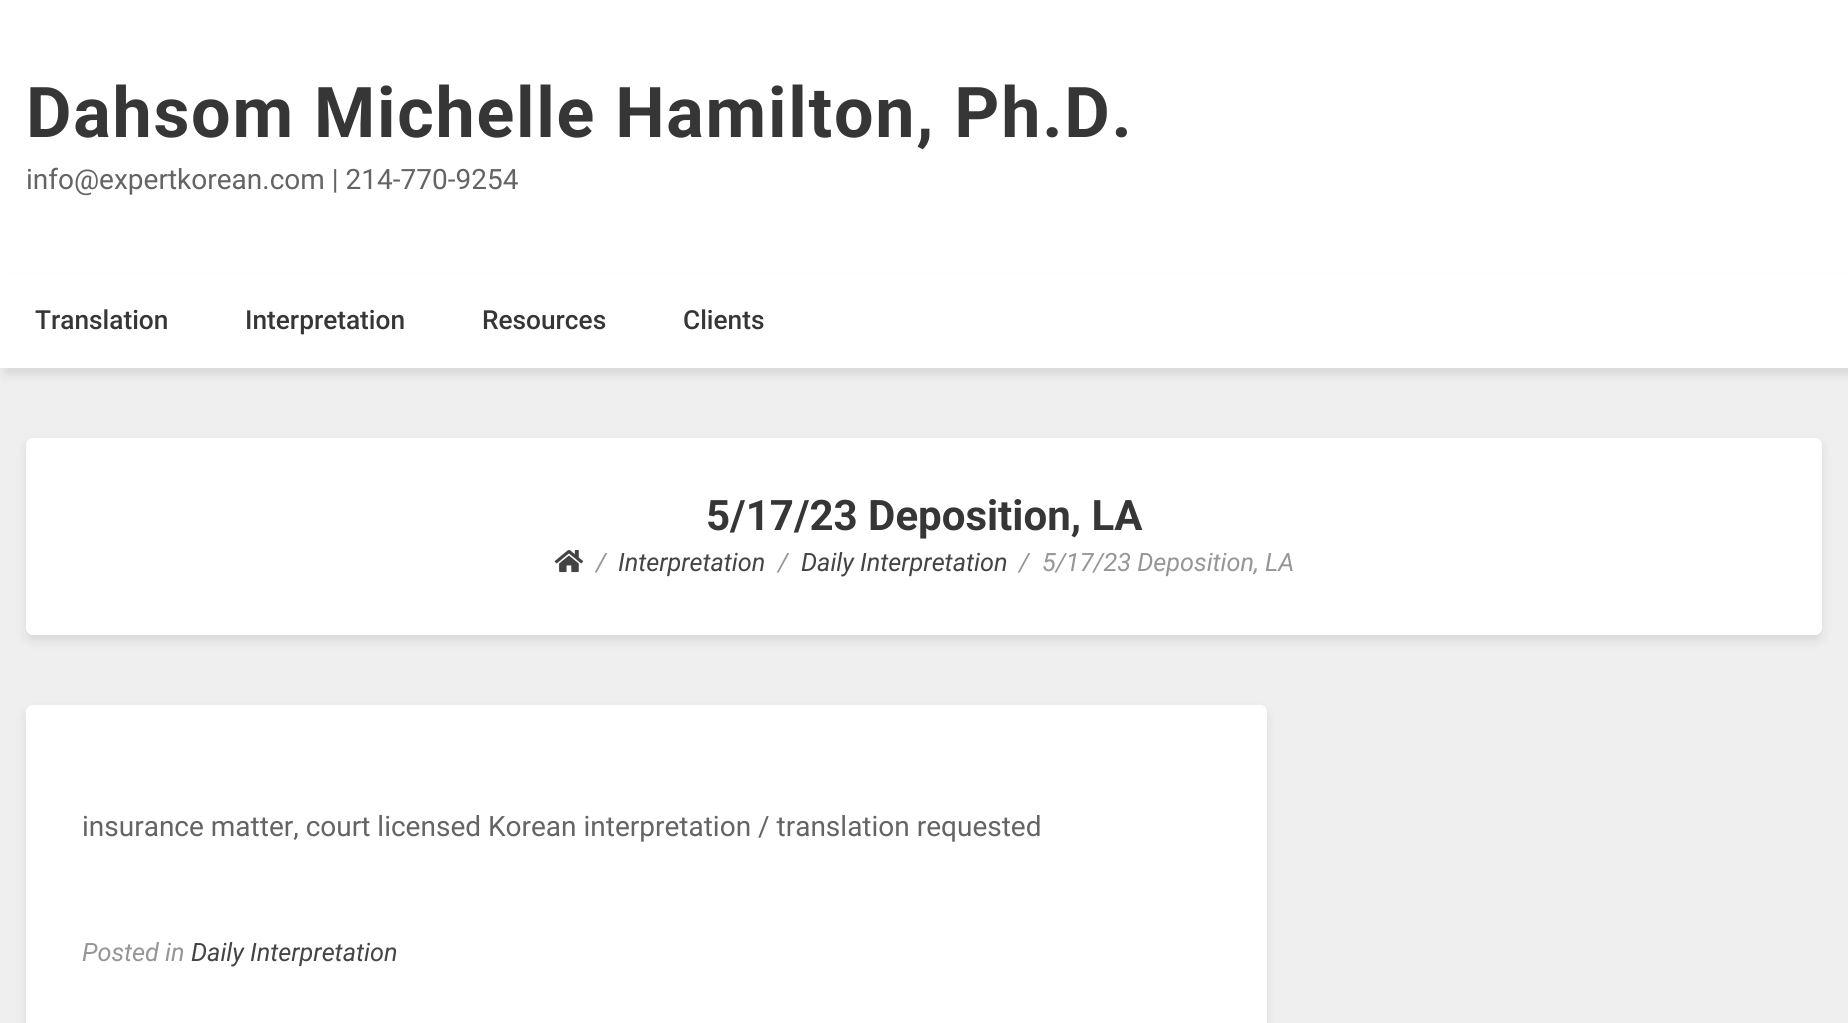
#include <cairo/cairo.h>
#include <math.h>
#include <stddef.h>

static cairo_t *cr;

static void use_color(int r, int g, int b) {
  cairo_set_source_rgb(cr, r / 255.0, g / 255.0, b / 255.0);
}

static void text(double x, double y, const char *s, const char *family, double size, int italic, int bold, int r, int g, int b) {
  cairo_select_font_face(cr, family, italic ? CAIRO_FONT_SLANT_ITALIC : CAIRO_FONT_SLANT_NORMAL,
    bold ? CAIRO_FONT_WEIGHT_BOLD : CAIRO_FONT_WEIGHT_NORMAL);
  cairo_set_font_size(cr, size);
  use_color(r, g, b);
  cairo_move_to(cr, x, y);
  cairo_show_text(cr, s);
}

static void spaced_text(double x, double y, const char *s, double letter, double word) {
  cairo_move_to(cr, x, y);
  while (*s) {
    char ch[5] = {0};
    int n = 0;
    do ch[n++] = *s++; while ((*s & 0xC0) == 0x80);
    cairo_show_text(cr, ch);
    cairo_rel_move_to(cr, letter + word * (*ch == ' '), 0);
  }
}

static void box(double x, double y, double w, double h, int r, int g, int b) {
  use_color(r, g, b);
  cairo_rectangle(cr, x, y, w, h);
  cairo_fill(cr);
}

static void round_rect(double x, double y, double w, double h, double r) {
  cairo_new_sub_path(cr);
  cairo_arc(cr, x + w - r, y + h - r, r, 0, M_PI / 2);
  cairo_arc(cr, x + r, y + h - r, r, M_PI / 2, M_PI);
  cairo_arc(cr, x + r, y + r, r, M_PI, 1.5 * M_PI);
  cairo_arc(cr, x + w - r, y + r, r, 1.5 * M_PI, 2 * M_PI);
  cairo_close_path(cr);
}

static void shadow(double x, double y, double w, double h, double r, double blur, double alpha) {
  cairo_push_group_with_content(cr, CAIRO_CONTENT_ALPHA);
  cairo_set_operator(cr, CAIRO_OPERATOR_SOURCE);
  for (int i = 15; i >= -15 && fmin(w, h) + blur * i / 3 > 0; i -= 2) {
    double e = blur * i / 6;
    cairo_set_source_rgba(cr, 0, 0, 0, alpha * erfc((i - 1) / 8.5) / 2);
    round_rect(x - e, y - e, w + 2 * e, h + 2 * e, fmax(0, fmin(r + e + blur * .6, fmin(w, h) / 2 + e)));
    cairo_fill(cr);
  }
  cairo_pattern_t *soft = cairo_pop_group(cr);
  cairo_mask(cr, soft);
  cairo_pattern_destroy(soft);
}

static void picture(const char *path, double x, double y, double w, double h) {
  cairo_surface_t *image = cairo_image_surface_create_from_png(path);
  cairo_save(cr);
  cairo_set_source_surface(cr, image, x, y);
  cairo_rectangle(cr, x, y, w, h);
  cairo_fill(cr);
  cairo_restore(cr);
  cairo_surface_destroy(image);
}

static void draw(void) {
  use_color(239, 239, 239);
  cairo_paint(cr);
  box(0, 0, 1848, 273, 255, 255, 255);
  use_color(20, 20, 20);
  shadow(4, 280, 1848, 95, 0, 5, 0.1);
  box(0, 273, 1848, 95, 255, 255, 255);
  use_color(20, 20, 20);
  shadow(26, 443, 1796, 198, 7, 5, 0.1);
  use_color(255, 255, 255);
  round_rect(26, 438, 1796, 197, 7);
  cairo_fill(cr);
  picture("img_01.png", 554, 550, 29, 23);
  use_color(20, 20, 20);
  shadow(26, 711, 1241, 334, 7, 5, 0.1);
  use_color(255, 255, 255);
  round_rect(26, 705, 1241, 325, 7);
  cairo_fill(cr);
  cairo_select_font_face(cr, "Roboto", CAIRO_FONT_SLANT_NORMAL, CAIRO_FONT_WEIGHT_BOLD);
  cairo_set_font_size(cr, 70);
  use_color(54, 54, 54);
  spaced_text(26, 137, "Dahsom Michelle Hamilton, Ph.D.", 1.75, 0);
  text(26, 189, "info@expertkorean.com | 214-770-9254", "Roboto", 28, 0, 0, 100, 100, 100);
  text(35, 329, "Translation", "Roboto Medium", 26.25, 0, 0, 54, 54, 54);
  text(245, 329, "Interpretation", "Roboto Medium", 26.25, 0, 0, 54, 54, 54);
  text(482, 329, "Resources", "Roboto Medium", 26.25, 0, 0, 54, 54, 54);
  text(683, 329, "Clients", "Roboto Medium", 26.25, 0, 0, 54, 54, 54);
  text(706, 530, "5/17/23 Deposition, LA", "Roboto", 42, 0, 1, 54, 54, 54);
  text(596, 571, "/", "Roboto", 25.25, 1, 0, 150, 150, 150);
  text(618, 571, "Interpretation", "Roboto", 25.25, 1, 0, 68, 68, 68);
  text(778, 571, "/", "Roboto", 25.25, 1, 0, 150, 150, 150);
  text(801, 571, "Daily Interpretation", "Roboto", 25.25, 1, 0, 68, 68, 68);
  text(1019, 571, "/", "Roboto", 25.25, 1, 0, 150, 150, 150);
  text(1042, 571, "5/17/23 Deposition, LA", "Roboto", 25.25, 1, 0, 150, 150, 150);
  text(82, 836, "insurance matter, court licensed Korean interpretation / translation requested", "Roboto", 28, 0, 0, 100, 100, 100);
  text(82, 961, "Posted in", "Roboto", 25.25, 1, 0, 150, 150, 150);
  text(191, 961, "Daily Interpretation", "Roboto", 25.25, 1, 0, 68, 68, 68);
}

int main(void) {
  cairo_surface_t *surface = cairo_image_surface_create(CAIRO_FORMAT_RGB24, 1848, 1023);
  cr = cairo_create(surface);
  cairo_font_options_t *options = cairo_font_options_create();
  cairo_font_options_set_hint_metrics(options, CAIRO_HINT_METRICS_OFF);
  cairo_font_options_set_hint_style(options, CAIRO_HINT_STYLE_NONE);
  cairo_set_font_options(cr, options);
  cairo_set_miter_limit(cr, 4);
  draw();
  cairo_surface_write_to_png(surface, "out.png");
  cairo_font_options_destroy(options);
  cairo_destroy(cr);
  cairo_surface_destroy(surface);
  return 0;
}
